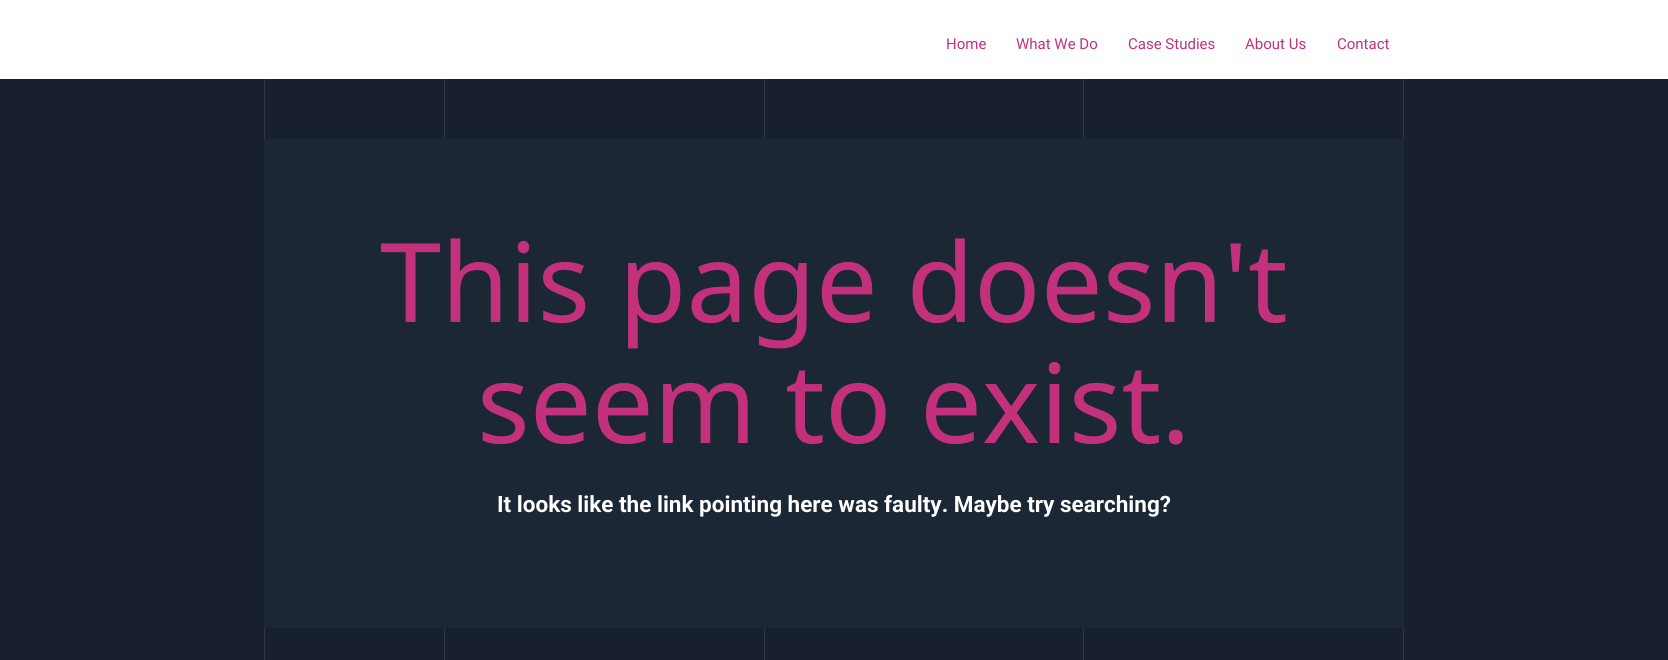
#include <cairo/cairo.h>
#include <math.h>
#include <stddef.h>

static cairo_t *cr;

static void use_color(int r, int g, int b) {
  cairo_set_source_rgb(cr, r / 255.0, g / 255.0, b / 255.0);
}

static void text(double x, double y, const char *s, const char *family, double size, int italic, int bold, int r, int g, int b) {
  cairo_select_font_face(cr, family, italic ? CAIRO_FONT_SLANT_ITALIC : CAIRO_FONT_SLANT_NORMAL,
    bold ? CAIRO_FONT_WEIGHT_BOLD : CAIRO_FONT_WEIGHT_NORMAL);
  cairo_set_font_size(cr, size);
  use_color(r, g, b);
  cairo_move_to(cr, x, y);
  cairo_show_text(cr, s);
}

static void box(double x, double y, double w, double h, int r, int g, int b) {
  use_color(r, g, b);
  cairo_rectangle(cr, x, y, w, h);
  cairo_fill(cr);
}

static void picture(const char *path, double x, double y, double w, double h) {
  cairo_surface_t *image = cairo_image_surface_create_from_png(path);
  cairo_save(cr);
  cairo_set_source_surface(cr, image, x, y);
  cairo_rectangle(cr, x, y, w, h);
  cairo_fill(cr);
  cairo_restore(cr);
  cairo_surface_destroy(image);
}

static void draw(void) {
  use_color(255, 255, 255);
  cairo_paint(cr);
  picture("img_01.png", 0, 79, 1668, 581);
  box(264, 139, 1140, 489, 28, 39, 53);
  text(946, 49, "Home", "Roboto", 15, 0, 0, 195, 49, 125);
  text(1016, 49, "What We Do", "Roboto", 15, 0, 0, 195, 49, 125);
  text(1128, 49, "Case Studies", "Roboto", 15, 0, 0, 195, 49, 125);
  text(1245, 49, "About Us", "Roboto", 15, 0, 0, 195, 49, 125);
  text(1337, 49, "Contact", "Roboto", 15, 0, 0, 195, 49, 125);
  text(380, 322, "This page doesn't", "Noto Sans", 110, 0, 0, 195, 49, 125);
  text(477, 443, "seem to exist.", "Noto Sans", 110, 0, 0, 195, 49, 125);
  text(497, 512, "It looks like the link pointing here was faulty. Maybe try searching?", "Roboto", 22.5, 0, 1, 255, 255, 255);
}

int main(void) {
  cairo_surface_t *surface = cairo_image_surface_create(CAIRO_FORMAT_RGB24, 1668, 660);
  cr = cairo_create(surface);
  cairo_font_options_t *options = cairo_font_options_create();
  cairo_font_options_set_hint_metrics(options, CAIRO_HINT_METRICS_OFF);
  cairo_font_options_set_hint_style(options, CAIRO_HINT_STYLE_NONE);
  cairo_set_font_options(cr, options);
  cairo_set_miter_limit(cr, 4);
  draw();
  cairo_surface_write_to_png(surface, "out.png");
  cairo_font_options_destroy(options);
  cairo_destroy(cr);
  cairo_surface_destroy(surface);
  return 0;
}
